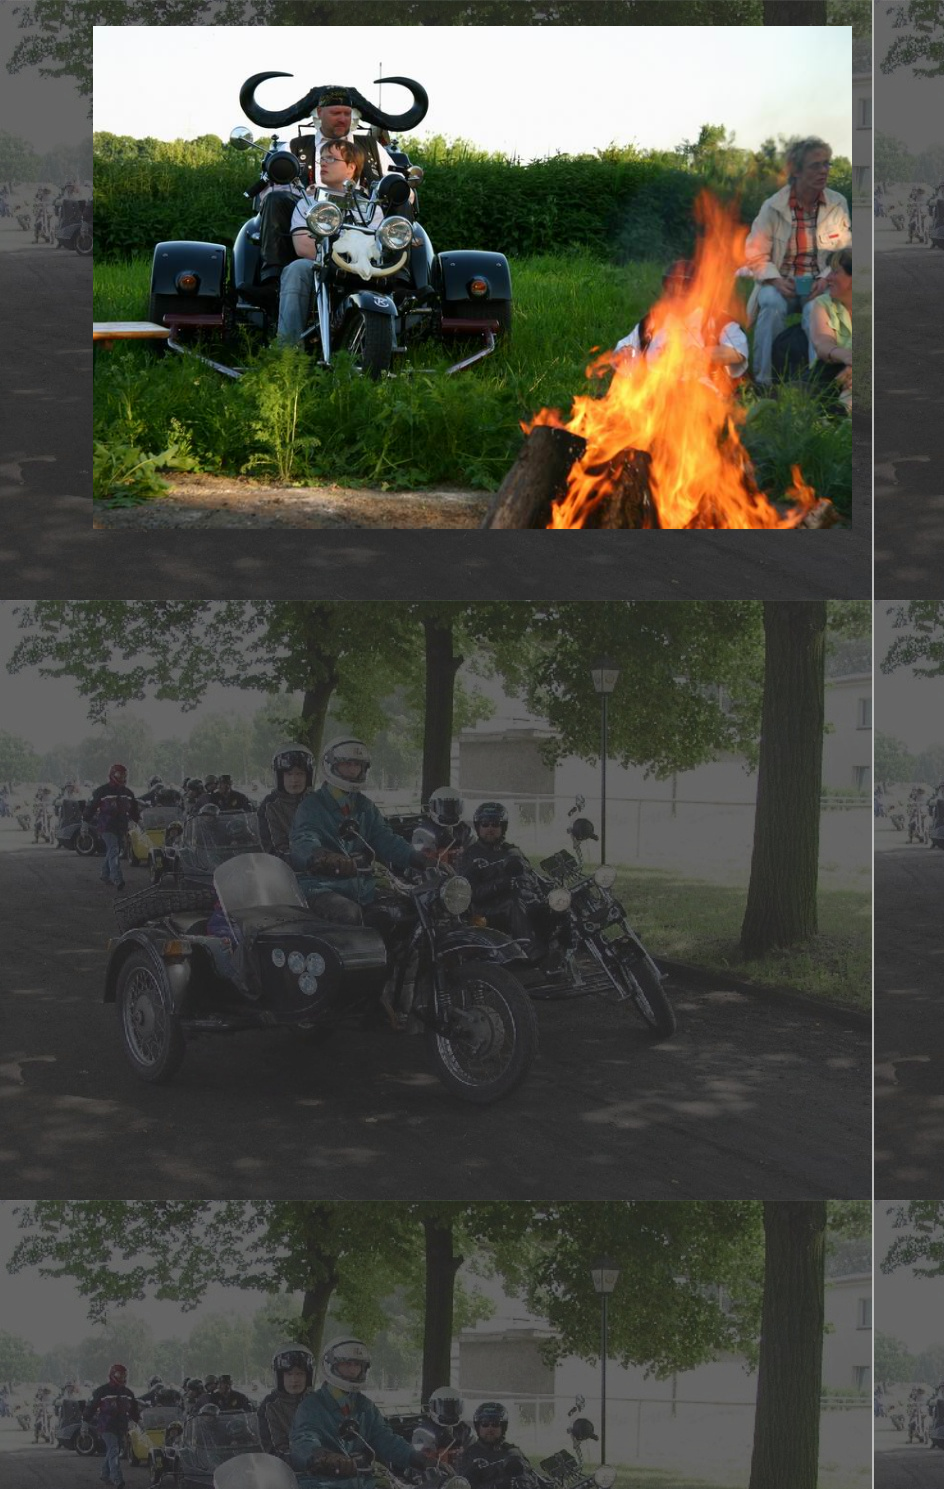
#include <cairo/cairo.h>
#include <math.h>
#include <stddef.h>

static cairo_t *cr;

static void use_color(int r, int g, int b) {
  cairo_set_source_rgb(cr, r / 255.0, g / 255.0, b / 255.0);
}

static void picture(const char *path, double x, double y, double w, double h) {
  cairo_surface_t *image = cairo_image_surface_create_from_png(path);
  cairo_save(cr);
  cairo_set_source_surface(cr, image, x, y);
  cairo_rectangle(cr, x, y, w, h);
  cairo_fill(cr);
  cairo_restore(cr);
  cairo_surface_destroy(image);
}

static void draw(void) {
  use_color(255, 255, 255);
  cairo_paint(cr);
  picture("img_01.png", 0, 0, 944, 1489);
  picture("img_02.png", 93, 26, 759, 503);
}

int main(void) {
  cairo_surface_t *surface = cairo_image_surface_create(CAIRO_FORMAT_RGB24, 944, 1489);
  cr = cairo_create(surface);
  cairo_font_options_t *options = cairo_font_options_create();
  cairo_font_options_set_hint_metrics(options, CAIRO_HINT_METRICS_OFF);
  cairo_font_options_set_hint_style(options, CAIRO_HINT_STYLE_NONE);
  cairo_set_font_options(cr, options);
  cairo_set_miter_limit(cr, 4);
  draw();
  cairo_surface_write_to_png(surface, "out.png");
  cairo_font_options_destroy(options);
  cairo_destroy(cr);
  cairo_surface_destroy(surface);
  return 0;
}
